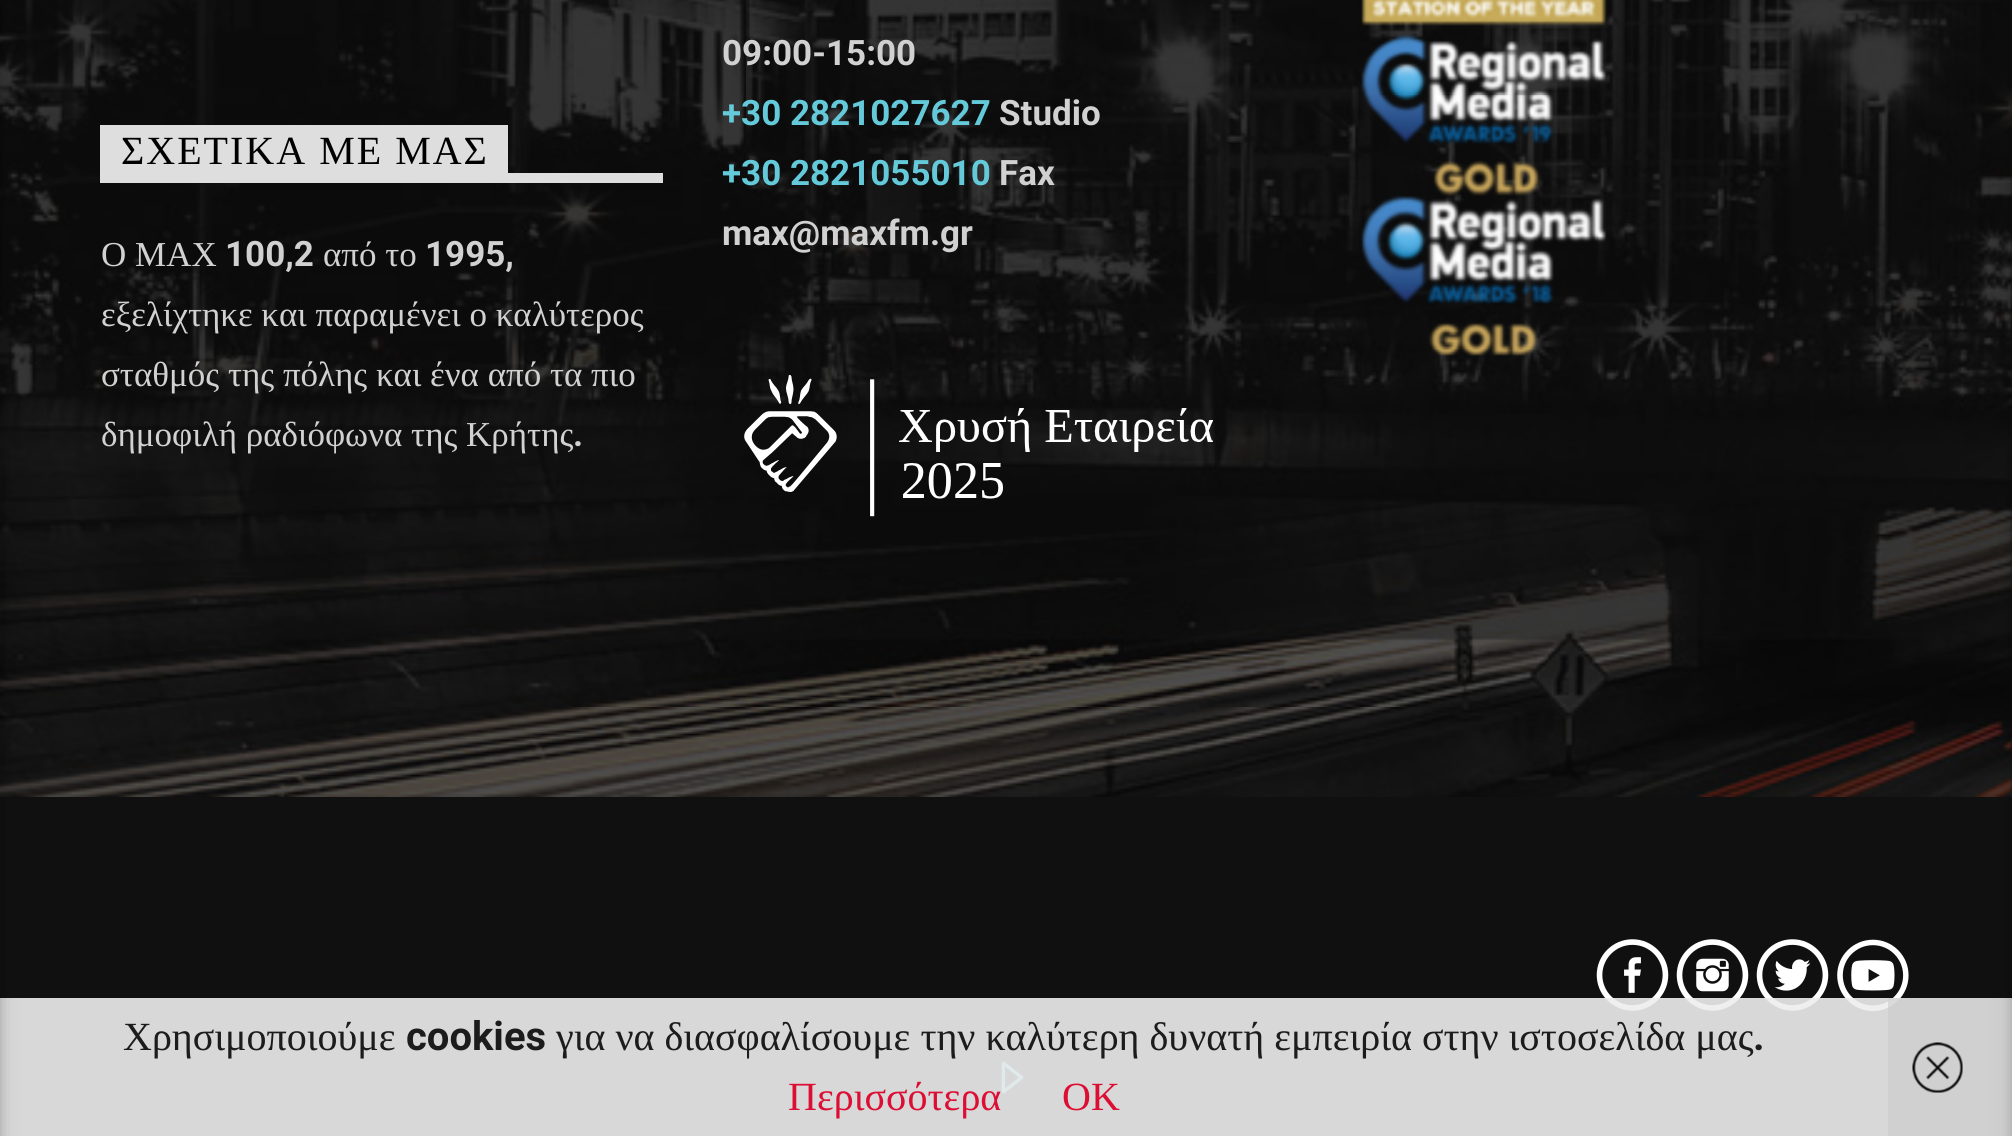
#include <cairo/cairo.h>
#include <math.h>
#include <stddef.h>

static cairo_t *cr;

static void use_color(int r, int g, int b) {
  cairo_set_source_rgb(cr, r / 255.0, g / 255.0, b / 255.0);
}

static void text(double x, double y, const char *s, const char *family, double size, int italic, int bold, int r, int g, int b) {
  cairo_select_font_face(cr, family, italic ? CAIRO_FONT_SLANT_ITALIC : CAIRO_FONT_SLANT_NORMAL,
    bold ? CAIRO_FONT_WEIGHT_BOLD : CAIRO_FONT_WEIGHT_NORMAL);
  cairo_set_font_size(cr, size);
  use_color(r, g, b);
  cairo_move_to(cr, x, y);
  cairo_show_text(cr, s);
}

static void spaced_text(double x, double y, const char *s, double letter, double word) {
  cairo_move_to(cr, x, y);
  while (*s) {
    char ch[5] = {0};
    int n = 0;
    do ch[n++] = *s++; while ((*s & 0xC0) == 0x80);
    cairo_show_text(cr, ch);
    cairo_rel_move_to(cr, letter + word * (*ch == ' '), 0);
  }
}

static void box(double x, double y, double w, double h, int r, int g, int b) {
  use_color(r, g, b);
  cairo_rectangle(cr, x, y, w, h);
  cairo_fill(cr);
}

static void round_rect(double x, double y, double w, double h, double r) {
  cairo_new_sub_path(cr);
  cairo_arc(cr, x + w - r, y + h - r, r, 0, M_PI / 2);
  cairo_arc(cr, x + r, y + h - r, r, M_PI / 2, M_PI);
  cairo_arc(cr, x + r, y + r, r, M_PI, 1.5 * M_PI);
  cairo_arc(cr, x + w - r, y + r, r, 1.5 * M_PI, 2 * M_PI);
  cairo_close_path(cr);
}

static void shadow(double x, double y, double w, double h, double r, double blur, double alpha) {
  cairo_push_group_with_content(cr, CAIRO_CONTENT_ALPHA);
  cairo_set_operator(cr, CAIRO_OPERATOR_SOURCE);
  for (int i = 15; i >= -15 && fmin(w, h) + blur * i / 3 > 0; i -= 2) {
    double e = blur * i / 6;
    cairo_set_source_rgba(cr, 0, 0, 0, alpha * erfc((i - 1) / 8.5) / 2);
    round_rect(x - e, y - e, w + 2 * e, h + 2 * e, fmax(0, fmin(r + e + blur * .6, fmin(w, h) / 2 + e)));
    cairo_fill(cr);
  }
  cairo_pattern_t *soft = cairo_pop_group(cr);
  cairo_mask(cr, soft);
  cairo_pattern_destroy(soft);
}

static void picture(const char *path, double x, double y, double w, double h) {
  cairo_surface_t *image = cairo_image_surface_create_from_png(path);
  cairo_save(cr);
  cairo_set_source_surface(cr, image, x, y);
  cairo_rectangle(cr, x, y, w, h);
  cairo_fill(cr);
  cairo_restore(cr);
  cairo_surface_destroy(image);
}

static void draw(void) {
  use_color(16, 16, 16);
  cairo_paint(cr);
  picture("img_01.png", 0, 0, 2012, 797);
  picture("img_04.png", 1596, 939, 73, 72);
  picture("img_05.png", 1676, 939, 73, 72);
  picture("img_06.png", 1756, 939, 73, 72);
  picture("img_07.png", 1837, 939, 72, 73);
  picture("img_09.png", 1001, 1061, 23, 33);
  cairo_set_source_rgba(cr, 0.933, 0.933, 0.933, 0.9);
  cairo_rectangle(cr, 0, 998, 2012, 138);
  cairo_fill(cr);
  use_color(0, 0, 0);
  shadow(-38, 5, 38, 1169, 0, 12.5, 0.12);
  shadow(-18, 5, 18, 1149, 0, 6, 0.16);
  box(100, 173, 563, 10, 222, 222, 222);
  box(100, 125, 408, 48, 222, 222, 222);
  picture("img_02.png", 1361, 0, 246, 356);
  picture("img_03.png", 744, 375, 469, 142);
  cairo_set_source_rgba(cr, 0.8, 0.8, 0.8, 0.6);
  cairo_rectangle(cr, 1888, 998, 124, 138);
  cairo_fill(cr);
  use_color(0, 0, 0);
  shadow(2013, 5, 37, 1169, 0, 12.5, 0.12);
  shadow(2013, 5, 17, 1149, 0, 6, 0.16);
  picture("img_08.png", 1912, 1042, 51, 51);
  cairo_select_font_face(cr, "Liberation Serif", CAIRO_FONT_SLANT_NORMAL, CAIRO_FONT_WEIGHT_NORMAL);
  cairo_set_font_size(cr, 40);
  use_color(0, 0, 0);
  spaced_text(121, 164, "ΣΧΕΤΙΚΑ ΜΕ ΜΑΣ", 2, 0);
  text(101, 266, "Ο ΜΑΧ", "Liberation Serif", 35, 0, 0, 209, 209, 209);
  text(225, 266, "100,2", "Roboto", 35, 0, 1, 209, 209, 209);
  text(323, 266, "από το", "Liberation Serif", 35, 0, 0, 209, 209, 209);
  text(425, 266, "1995,", "Roboto", 35, 0, 1, 209, 209, 209);
  text(101, 326, "εξελίχτηκε και παραμένει ο καλύτερος", "Liberation Serif", 35, 0, 0, 209, 209, 209);
  text(101, 386, "σταθμός της πόλης και ένα από τα πιο", "Liberation Serif", 35, 0, 0, 209, 209, 209);
  text(101, 446, "δημοφιλή ραδιόφωνα της Κρήτης", "Liberation Serif", 35, 0, 0, 209, 209, 209);
  text(573, 446, ".", "Roboto", 35, 0, 1, 209, 209, 209);
  text(722, 65, "09:00-15:00", "Roboto", 35, 0, 1, 209, 209, 209);
  text(722, 125, "+30 2821027627", "Roboto", 35, 0, 1, 100, 201, 217);
  text(999, 125, "Studio", "Roboto", 35, 0, 1, 209, 209, 209);
  text(722, 185, "+30 2821055010", "Roboto", 35, 0, 1, 100, 201, 217);
  text(999, 185, "Fax", "Roboto", 35, 0, 1, 209, 209, 209);
  text(722, 245, "max@maxfm.gr", "Roboto", 35, 0, 1, 209, 209, 209);
  text(123, 1050, "Χρησιμοποιούμε", "Liberation Serif", 40, 0, 0, 28, 28, 28);
  text(406, 1050, "cookies", "Roboto", 40, 0, 1, 28, 28, 28);
  text(556, 1050, "για να διασφαλίσουμε την καλύτερη δυνατή εμπειρία στην ιστοσελίδα μας", "Liberation Serif", 40, 0, 0, 28, 28, 28);
  text(1753, 1050, ".", "Roboto", 40, 0, 1, 28, 28, 28);
  text(788, 1110, "Περισσότερα", "Liberation Serif", 40, 0, 0, 221, 14, 52);
  text(1062, 1110, "ΟΚ", "Liberation Serif", 40, 0, 0, 221, 14, 52);
}

int main(void) {
  cairo_surface_t *surface = cairo_image_surface_create(CAIRO_FORMAT_RGB24, 2012, 1136);
  cr = cairo_create(surface);
  cairo_font_options_t *options = cairo_font_options_create();
  cairo_font_options_set_hint_metrics(options, CAIRO_HINT_METRICS_OFF);
  cairo_font_options_set_hint_style(options, CAIRO_HINT_STYLE_NONE);
  cairo_set_font_options(cr, options);
  cairo_set_miter_limit(cr, 4);
  draw();
  cairo_surface_write_to_png(surface, "out.png");
  cairo_font_options_destroy(options);
  cairo_destroy(cr);
  cairo_surface_destroy(surface);
  return 0;
}
